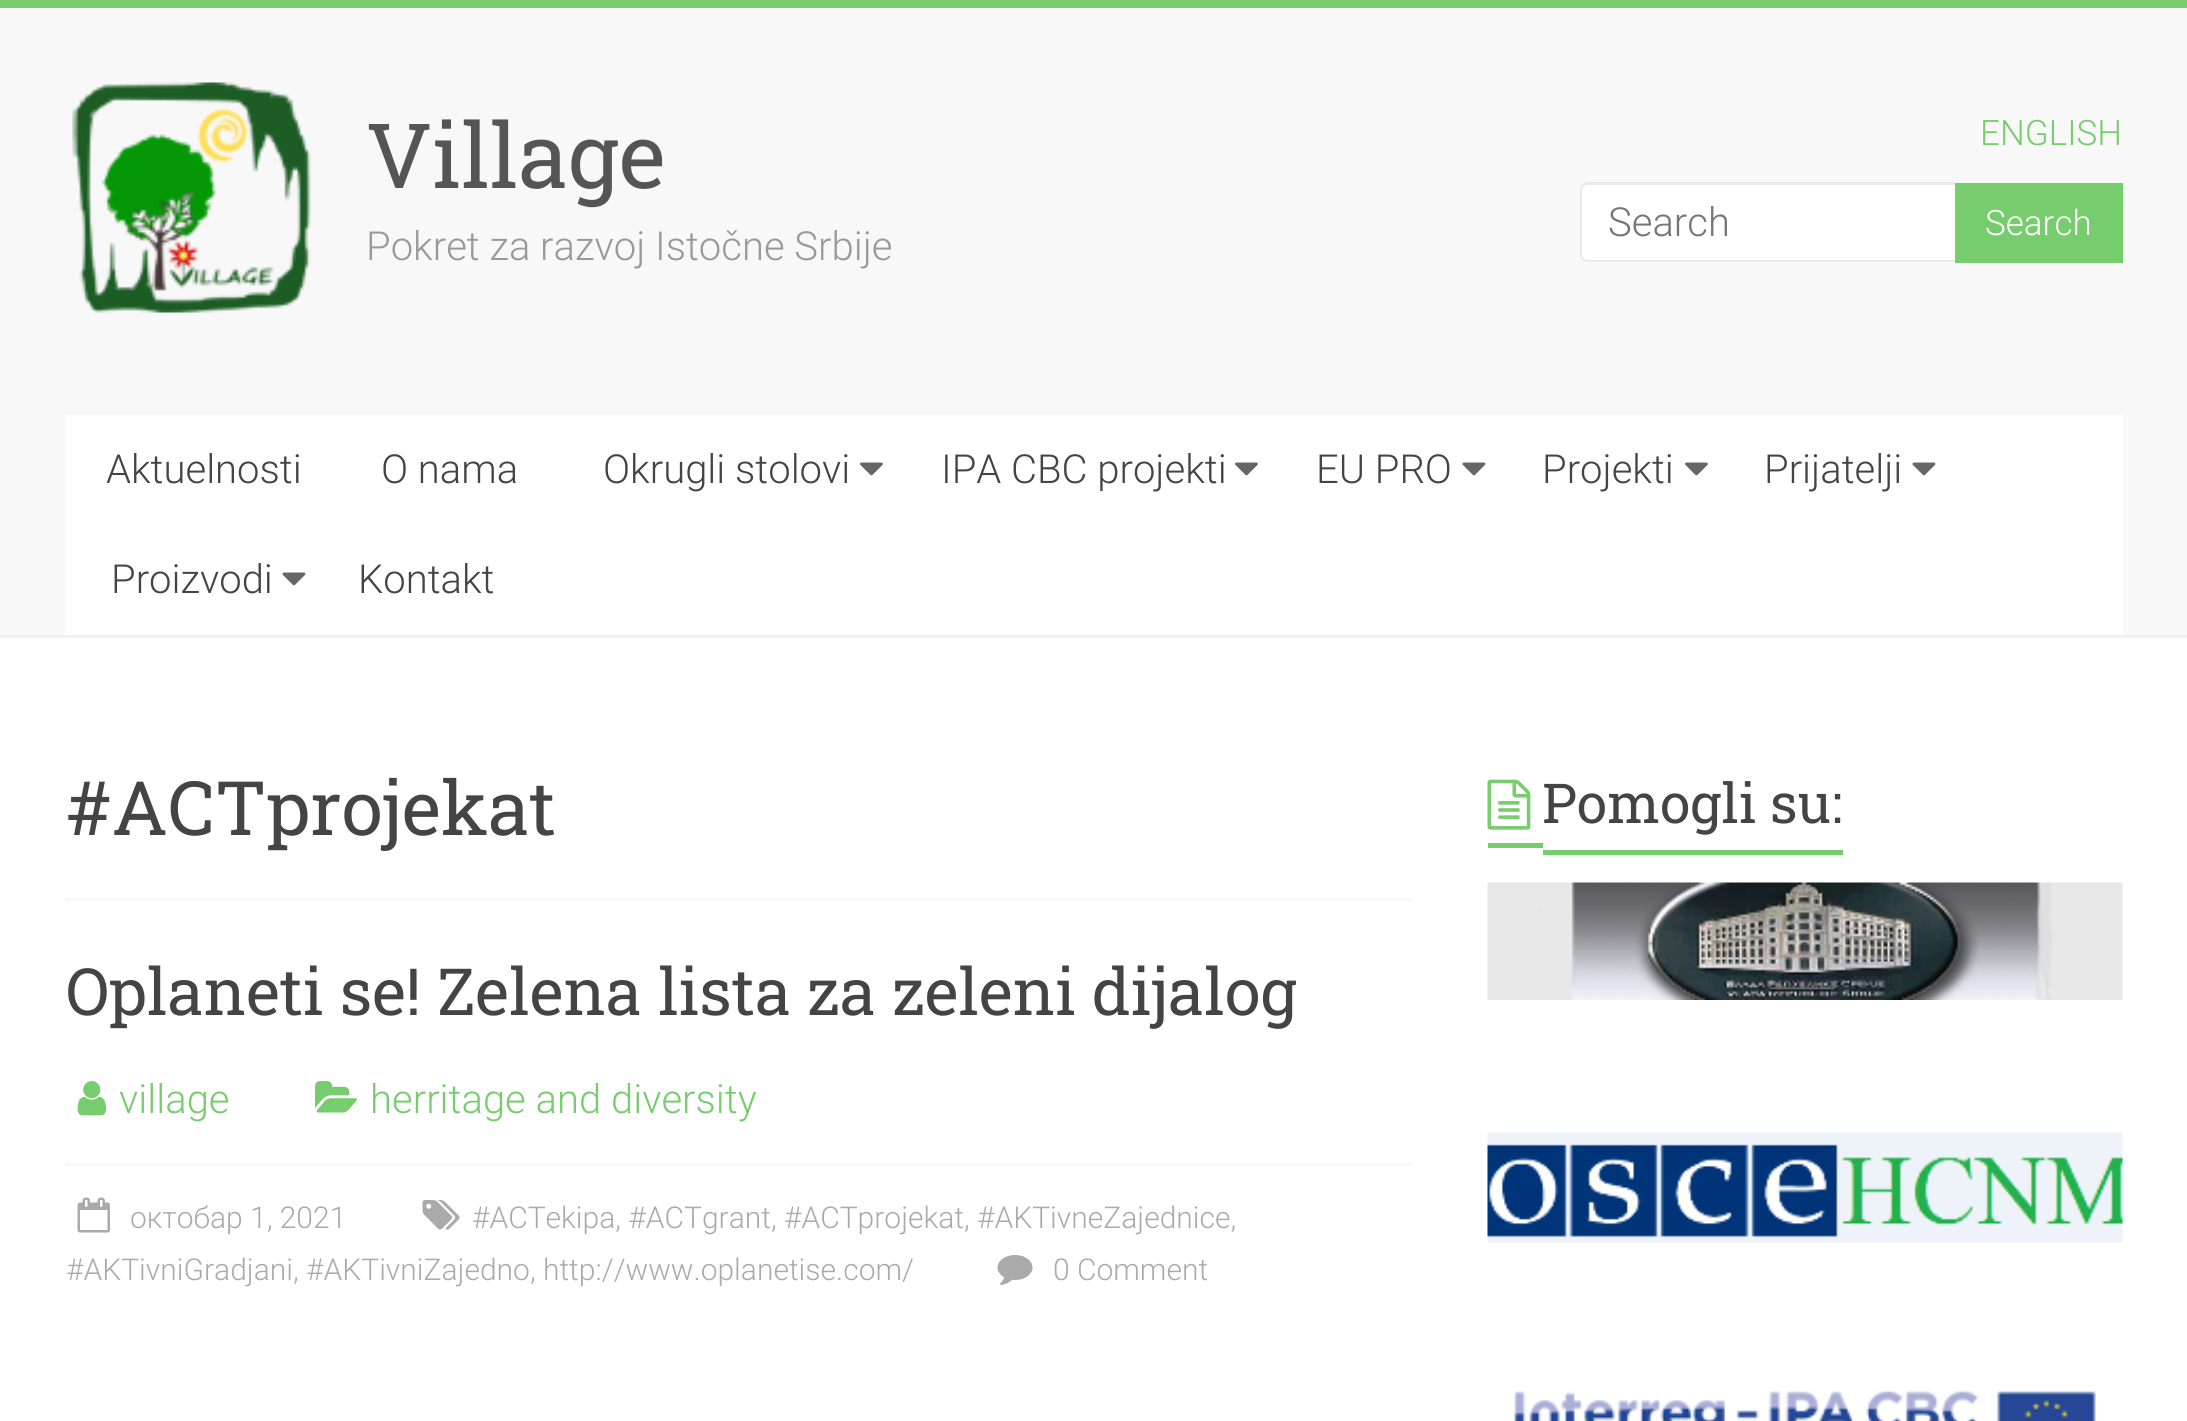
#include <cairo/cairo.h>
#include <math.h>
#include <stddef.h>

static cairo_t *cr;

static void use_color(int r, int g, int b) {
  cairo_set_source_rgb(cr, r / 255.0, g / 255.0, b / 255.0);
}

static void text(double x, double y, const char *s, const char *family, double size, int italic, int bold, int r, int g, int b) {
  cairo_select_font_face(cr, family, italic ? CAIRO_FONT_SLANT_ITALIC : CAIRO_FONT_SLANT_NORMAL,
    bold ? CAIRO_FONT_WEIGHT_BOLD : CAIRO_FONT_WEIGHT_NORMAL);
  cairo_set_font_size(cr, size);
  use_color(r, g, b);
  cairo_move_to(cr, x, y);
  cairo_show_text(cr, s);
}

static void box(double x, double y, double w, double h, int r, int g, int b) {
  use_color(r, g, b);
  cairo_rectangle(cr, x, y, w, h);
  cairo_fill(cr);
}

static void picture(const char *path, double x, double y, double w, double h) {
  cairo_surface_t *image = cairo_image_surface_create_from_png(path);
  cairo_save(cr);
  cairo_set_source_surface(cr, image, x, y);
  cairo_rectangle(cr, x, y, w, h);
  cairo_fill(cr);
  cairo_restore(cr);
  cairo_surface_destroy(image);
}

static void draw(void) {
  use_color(255, 255, 255);
  cairo_paint(cr);
  box(0, 0, 2187, 8, 119, 204, 109);
  box(0, 8, 2187, 627, 248, 248, 248);
  box(0, 635, 2187, 3, 242, 242, 242);
  picture("img_01.png", 72, 82, 239, 231);
  use_color(255, 255, 255);
  cairo_new_path(cr);
  cairo_move_to(cr, 1588, 183);
  cairo_line_to(cr, 1955, 183);
  cairo_line_to(cr, 1955, 263);
  cairo_line_to(cr, 1588, 263);
  cairo_curve_to(cr, 1583.5, 263, 1580, 259.5, 1580, 255);
  cairo_line_to(cr, 1580, 191);
  cairo_curve_to(cr, 1580, 186.5, 1583.5, 183, 1588, 183);
  cairo_close_path(cr);
  cairo_fill(cr);
  use_color(234, 234, 234);
  cairo_set_fill_rule(cr, CAIRO_FILL_RULE_EVEN_ODD);
  cairo_new_path(cr);
  cairo_move_to(cr, 1588, 182);
  cairo_line_to(cr, 1955, 182);
  cairo_line_to(cr, 1955, 262);
  cairo_line_to(cr, 1588, 262);
  cairo_curve_to(cr, 1583, 262, 1580, 259, 1580, 255);
  cairo_line_to(cr, 1580, 190);
  cairo_curve_to(cr, 1580, 186, 1583, 182, 1588, 182);
  cairo_close_path(cr);
  cairo_move_to(cr, 1588, 185);
  cairo_line_to(cr, 1955, 185);
  cairo_line_to(cr, 1955, 260);
  cairo_line_to(cr, 1588, 260);
  cairo_curve_to(cr, 1585, 260, 1582, 258, 1582, 255);
  cairo_line_to(cr, 1582, 190);
  cairo_curve_to(cr, 1582, 187, 1585, 185, 1588, 185);
  cairo_close_path(cr);
  cairo_fill(cr);
  box(1955, 183, 168, 80, 119, 204, 109);
  box(65, 415, 2058, 220, 255, 255, 255);
  picture("img_02.png", 860, 462, 23, 14);
  picture("img_02.png", 1235, 462, 23, 14);
  picture("img_03.png", 1462, 462, 24, 14);
  picture("img_02.png", 1685, 462, 23, 14);
  picture("img_03.png", 1912, 462, 24, 14);
  picture("img_03.png", 282, 572, 24, 14);
  box(65, 898, 1348, 3, 248, 248, 248);
  picture("img_04.png", 77, 1081, 30, 35);
  picture("img_05.png", 315, 1081, 42, 32);
  box(65, 1163, 1348, 3, 248, 248, 248);
  picture("img_06.png", 422, 1200, 38, 30);
  picture("img_07.png", 77, 1197, 33, 36);
  picture("img_08.png", 997, 1255, 36, 30);
  picture("img_09.png", 1487, 779, 44, 51);
  box(1488, 843, 55, 5, 119, 204, 109);
  box(1543, 850, 300, 5, 119, 204, 109);
  picture("img_10.png", 1487, 882, 636, 118);
  picture("img_11.png", 1487, 1132, 636, 111);
  picture("img_12.png", 1514, 1390, 582, 31);
  text(366, 188, "Village", "Roboto Slab", 90, 0, 0, 85, 85, 85);
  text(366, 260, "Pokret za razvoj Istočne Srbije", "Roboto Light", 40, 0, 0, 153, 153, 153);
  text(1980, 145, "ENGLISH", "Roboto Light", 35, 0, 0, 119, 204, 109);
  text(1608, 236, "Search", "Roboto Light", 40, 0, 0, 117, 117, 117);
  text(1985, 235, "Search", "Roboto Light", 35, 0, 0, 255, 255, 255);
  text(106, 483, "Aktuelnosti", "Roboto Light", 40, 0, 0, 68, 68, 68);
  text(381, 483, "O nama", "Roboto Light", 40, 0, 0, 68, 68, 68);
  text(603, 483, "Okrugli stolovi", "Roboto Light", 40, 0, 0, 68, 68, 68);
  text(941, 483, "IPA CBC projekti", "Roboto Light", 40, 0, 0, 68, 68, 68);
  text(1316, 483, "EU PRO", "Roboto Light", 40, 0, 0, 68, 68, 68);
  text(1542, 483, "Projekti", "Roboto Light", 40, 0, 0, 68, 68, 68);
  text(1764, 483, "Prijatelji", "Roboto Light", 40, 0, 0, 68, 68, 68);
  text(111, 593, "Proizvodi", "Roboto Light", 40, 0, 0, 68, 68, 68);
  text(358, 593, "Kontakt", "Roboto Light", 40, 0, 0, 68, 68, 68);
  text(66, 835, "#ACTprojekat", "Roboto Slab", 75, 0, 0, 68, 68, 68);
  text(66, 1015, "Oplaneti se! Zelena lista za zeleni dijalog", "Roboto Slab", 65, 0, 0, 68, 68, 68);
  text(119, 1113, "village", "Roboto Light", 40, 0, 0, 119, 204, 109);
  text(370, 1113, "herritage and diversity", "Roboto Light", 40, 0, 0, 119, 204, 109);
  text(472, 1228, "#ACTekipa, #ACTgrant, #ACTprojekat, #AKTivneZajednice,", "Roboto Light", 30, 0, 0, 170, 170, 170);
  text(66, 1280, "#AKTivniGradjani, #AKTivniZajedno, http://www.oplanetise.com/", "Roboto Light", 30, 0, 0, 170, 170, 170);
  text(130, 1228, "октобар 1, 2021", "Roboto Light", 30, 0, 0, 170, 170, 170);
  text(1053, 1280, "0 Comment", "Roboto Light", 30, 0, 0, 170, 170, 170);
  text(1542, 823, "Pomogli su:", "Roboto Slab", 55, 0, 0, 68, 68, 68);
}

int main(void) {
  cairo_surface_t *surface = cairo_image_surface_create(CAIRO_FORMAT_RGB24, 2187, 1421);
  cr = cairo_create(surface);
  cairo_font_options_t *options = cairo_font_options_create();
  cairo_font_options_set_hint_metrics(options, CAIRO_HINT_METRICS_OFF);
  cairo_font_options_set_hint_style(options, CAIRO_HINT_STYLE_NONE);
  cairo_set_font_options(cr, options);
  cairo_set_miter_limit(cr, 4);
  draw();
  cairo_surface_write_to_png(surface, "out.png");
  cairo_font_options_destroy(options);
  cairo_destroy(cr);
  cairo_surface_destroy(surface);
  return 0;
}
